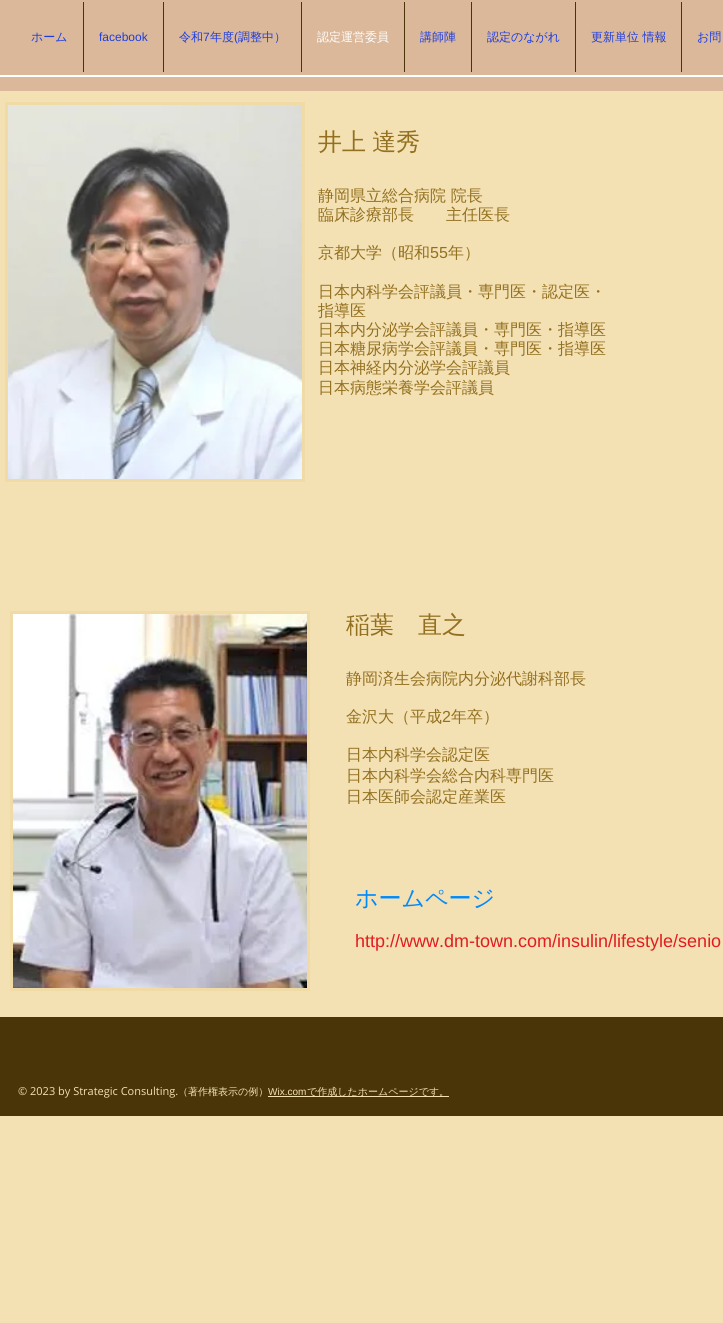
#include <cairo/cairo.h>
#include <math.h>
#include <stddef.h>

static cairo_t *cr;

static void use_color(int r, int g, int b) {
  cairo_set_source_rgb(cr, r / 255.0, g / 255.0, b / 255.0);
}

static void text(double x, double y, const char *s, const char *family, double size, int italic, int bold, int r, int g, int b) {
  cairo_select_font_face(cr, family, italic ? CAIRO_FONT_SLANT_ITALIC : CAIRO_FONT_SLANT_NORMAL,
    bold ? CAIRO_FONT_WEIGHT_BOLD : CAIRO_FONT_WEIGHT_NORMAL);
  cairo_set_font_size(cr, size);
  use_color(r, g, b);
  cairo_move_to(cr, x, y);
  cairo_show_text(cr, s);
}

static void spaced_text(double x, double y, const char *s, double letter, double word) {
  cairo_move_to(cr, x, y);
  while (*s) {
    char ch[5] = {0};
    int n = 0;
    do ch[n++] = *s++; while ((*s & 0xC0) == 0x80);
    cairo_show_text(cr, ch);
    cairo_rel_move_to(cr, letter + word * (*ch == ' '), 0);
  }
}

static void box(double x, double y, double w, double h, int r, int g, int b) {
  use_color(r, g, b);
  cairo_rectangle(cr, x, y, w, h);
  cairo_fill(cr);
}

static void picture(const char *path, double x, double y, double w, double h) {
  cairo_surface_t *image = cairo_image_surface_create_from_png(path);
  cairo_save(cr);
  cairo_set_source_surface(cr, image, x, y);
  cairo_rectangle(cr, x, y, w, h);
  cairo_fill(cr);
  cairo_restore(cr);
  cairo_surface_destroy(image);
}

static void draw(void) {
  use_color(243, 224, 179);
  cairo_paint(cr);
  box(0, 0, 723, 91, 219, 184, 154);
  box(0, 75, 723, 2, 255, 255, 255);
  box(83, 2, 1, 70, 73, 53, 8);
  box(163, 2, 1, 70, 73, 53, 8);
  box(301, 2, 1, 70, 73, 53, 8);
  box(404, 2, 1, 70, 73, 53, 8);
  box(471, 2, 1, 70, 73, 53, 8);
  box(575, 2, 1, 70, 73, 53, 8);
  box(681, 2, 1, 70, 73, 53, 8);
  cairo_rectangle(cr, 6.5, 103.5, 297, 377);
  use_color(240, 219, 166);
  cairo_set_line_width(cr, 3);
  cairo_stroke(cr);
  picture("img_01.png", 8, 105, 294, 374);
  cairo_rectangle(cr, 11.5, 612.5, 297, 377);
  cairo_stroke(cr);
  picture("img_02.png", 13, 614, 294, 374);
  box(0, 1017, 723, 99, 73, 53, 8);
  box(268, 1096, 181, 1, 243, 224, 179);
  text(31, 41, "ホーム", "WenQuanYi Zen Hei Medium", 12, 0, 0, 28, 61, 226);
  text(99, 41, "facebook", "Liberation Sans", 12, 0, 0, 28, 61, 226);
  text(179, 41, "令和", "WenQuanYi Zen Hei Medium", 12, 0, 0, 28, 61, 226);
  text(203, 41, "7", "Liberation Sans", 12, 0, 0, 28, 61, 226);
  text(210, 41, "年度", "WenQuanYi Zen Hei Medium", 12, 0, 0, 28, 61, 226);
  text(234, 41, "(", "Liberation Sans", 12, 0, 0, 28, 61, 226);
  text(238, 41, "調整中）", "WenQuanYi Zen Hei Medium", 12, 0, 0, 28, 61, 226);
  text(317, 41, "認定運営委員", "WenQuanYi Zen Hei Medium", 12, 0, 0, 255, 255, 255);
  text(420, 41, "講師陣", "WenQuanYi Zen Hei Medium", 12, 0, 0, 28, 61, 226);
  text(487, 41, "認定のながれ", "WenQuanYi Zen Hei Medium", 12, 0, 0, 28, 61, 226);
  text(591, 41, "更新単位 情報", "WenQuanYi Zen Hei Medium", 12, 0, 0, 28, 61, 226);
  text(697, 41, "お問", "WenQuanYi Zen Hei Medium", 12, 0, 0, 28, 61, 226);
  cairo_set_font_size(cr, 24);
  use_color(147, 112, 31);
  spaced_text(318, 150, "井上 達秀", 0, -1);
  text(318, 201, "静岡県立総合病院 院長", "WenQuanYi Zen Hei Medium", 16, 0, 0, 147, 112, 31);
  text(318, 220, "臨床診療部長　　主任医長", "WenQuanYi Zen Hei Medium", 16, 0, 0, 147, 112, 31);
  text(318, 258, "京都大学（昭和", "WenQuanYi Zen Hei Medium", 16, 0, 0, 147, 112, 31);
  text(430, 258, "55", "Liberation Sans", 16, 0, 0, 147, 112, 31);
  text(448, 258, "年）", "WenQuanYi Zen Hei Medium", 16, 0, 0, 147, 112, 31);
  text(318, 297, "日本内科学会評議員・専門医・認定医・", "WenQuanYi Zen Hei Medium", 16, 0, 0, 147, 112, 31);
  text(318, 316, "指導医", "WenQuanYi Zen Hei Medium", 16, 0, 0, 147, 112, 31);
  text(318, 335, "日本内分泌学会評議員・専門医・指導医", "WenQuanYi Zen Hei Medium", 16, 0, 0, 147, 112, 31);
  text(318, 354, "日本糖尿病学会評議員・専門医・指導医", "WenQuanYi Zen Hei Medium", 16, 0, 0, 147, 112, 31);
  text(318, 373, "日本神経内分泌学会評議員", "WenQuanYi Zen Hei Medium", 16, 0, 0, 147, 112, 31);
  text(318, 393, "日本病態栄養学会評議員", "WenQuanYi Zen Hei Medium", 16, 0, 0, 147, 112, 31);
  text(346, 633, "稲葉　直之", "WenQuanYi Zen Hei Medium", 24, 0, 0, 147, 112, 31);
  text(346, 684, "静岡済生会病院内分泌代謝科部長", "WenQuanYi Zen Hei Medium", 16, 0, 0, 147, 112, 31);
  text(346, 722, "金沢大（平成", "WenQuanYi Zen Hei Medium", 16, 0, 0, 147, 112, 31);
  text(442, 722, "2", "Liberation Sans", 16, 0, 0, 147, 112, 31);
  text(451, 722, "年卒）", "WenQuanYi Zen Hei Medium", 16, 0, 0, 147, 112, 31);
  text(346, 760, "日本内科学会認定医", "WenQuanYi Zen Hei Medium", 16, 0, 0, 147, 112, 31);
  text(346, 781, "日本内科学会総合内科専門医", "WenQuanYi Zen Hei Medium", 16, 0, 0, 147, 112, 31);
  text(346, 802, "日本医師会認定産業医", "WenQuanYi Zen Hei Medium", 16, 0, 0, 147, 112, 31);
  text(355, 906, "ホームページ", "WenQuanYi Zen Hei Medium", 23, 0, 0, 0, 138, 252);
  text(355, 947, "http://www.dm-town.com/insulin/lifestyle/senio", "Liberation Sans", 18, 0, 0, 226, 28, 33);
  text(18, 1095, "© 2023 by Strategic Consulting.", "Open Sans", 11, 0, 0, 243, 224, 179);
  text(178, 1095, "（著作権表示の例）", "WenQuanYi Zen Hei Medium", 10, 0, 0, 243, 224, 179);
  text(268, 1095, "Wix.com", "Liberation Sans", 10, 0, 0, 243, 224, 179);
  text(307, 1095, "で作成したホームページです。", "WenQuanYi Zen Hei Medium", 10, 0, 0, 243, 224, 179);
}

int main(void) {
  cairo_surface_t *surface = cairo_image_surface_create(CAIRO_FORMAT_RGB24, 723, 1323);
  cr = cairo_create(surface);
  cairo_font_options_t *options = cairo_font_options_create();
  cairo_font_options_set_hint_metrics(options, CAIRO_HINT_METRICS_OFF);
  cairo_font_options_set_hint_style(options, CAIRO_HINT_STYLE_NONE);
  cairo_set_font_options(cr, options);
  cairo_set_miter_limit(cr, 4);
  draw();
  cairo_surface_write_to_png(surface, "out.png");
  cairo_font_options_destroy(options);
  cairo_destroy(cr);
  cairo_surface_destroy(surface);
  return 0;
}
